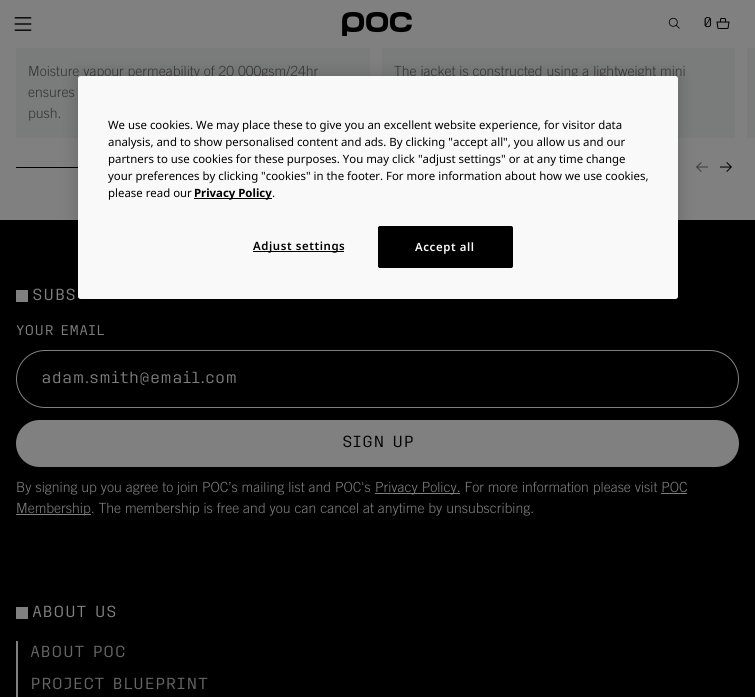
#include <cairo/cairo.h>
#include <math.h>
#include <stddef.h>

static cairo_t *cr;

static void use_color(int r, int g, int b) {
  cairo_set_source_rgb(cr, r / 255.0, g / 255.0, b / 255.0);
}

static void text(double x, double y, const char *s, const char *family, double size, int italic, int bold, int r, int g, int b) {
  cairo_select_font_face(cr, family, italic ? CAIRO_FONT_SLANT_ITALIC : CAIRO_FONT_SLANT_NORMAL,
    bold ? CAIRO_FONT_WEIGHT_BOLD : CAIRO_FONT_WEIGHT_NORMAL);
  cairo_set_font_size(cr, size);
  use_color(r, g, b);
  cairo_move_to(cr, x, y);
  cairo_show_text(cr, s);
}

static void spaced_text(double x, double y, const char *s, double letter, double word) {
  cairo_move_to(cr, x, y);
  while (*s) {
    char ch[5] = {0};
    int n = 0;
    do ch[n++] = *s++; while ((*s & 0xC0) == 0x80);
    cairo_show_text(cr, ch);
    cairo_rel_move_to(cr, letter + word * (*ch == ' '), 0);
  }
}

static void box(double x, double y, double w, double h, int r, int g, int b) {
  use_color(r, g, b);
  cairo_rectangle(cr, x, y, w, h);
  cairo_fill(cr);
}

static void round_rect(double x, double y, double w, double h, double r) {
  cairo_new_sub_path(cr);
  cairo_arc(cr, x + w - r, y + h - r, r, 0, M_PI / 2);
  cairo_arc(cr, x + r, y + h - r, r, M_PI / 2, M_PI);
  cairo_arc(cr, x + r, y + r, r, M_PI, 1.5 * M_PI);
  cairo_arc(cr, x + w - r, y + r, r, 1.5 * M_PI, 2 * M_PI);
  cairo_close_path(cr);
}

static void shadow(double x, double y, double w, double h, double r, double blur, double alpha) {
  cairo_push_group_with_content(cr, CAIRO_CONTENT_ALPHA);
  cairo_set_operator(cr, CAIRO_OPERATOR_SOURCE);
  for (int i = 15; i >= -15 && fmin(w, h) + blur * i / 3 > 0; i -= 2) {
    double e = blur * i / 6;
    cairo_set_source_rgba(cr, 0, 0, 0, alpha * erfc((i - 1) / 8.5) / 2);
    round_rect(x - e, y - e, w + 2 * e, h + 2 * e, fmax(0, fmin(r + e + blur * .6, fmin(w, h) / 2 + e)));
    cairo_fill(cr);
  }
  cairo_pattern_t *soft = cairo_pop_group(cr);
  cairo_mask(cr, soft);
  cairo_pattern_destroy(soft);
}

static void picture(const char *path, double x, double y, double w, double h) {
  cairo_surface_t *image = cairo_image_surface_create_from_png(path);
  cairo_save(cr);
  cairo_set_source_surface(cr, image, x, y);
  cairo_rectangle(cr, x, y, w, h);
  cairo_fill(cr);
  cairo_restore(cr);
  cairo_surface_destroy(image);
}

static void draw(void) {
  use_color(128, 128, 128);
  cairo_paint(cr);
  picture("img_01.png", 14, 17, 18, 14);
  picture("img_02.png", 342, 12, 70, 24);
  picture("img_03.png", 668, 17, 12, 12);
  picture("img_04.png", 716, 18, 14, 11);
  box(16, 48, 354, 90, 122, 123, 123);
  box(382, 48, 353, 90, 122, 123, 123);
  box(747, 48, 8, 90, 122, 123, 123);
  use_color(0, 0, 0);
  cairo_new_path(cr);
  cairo_move_to(cr, 16.5, 167);
  cairo_line_to(cr, 117, 167);
  cairo_line_to(cr, 117, 168);
  cairo_line_to(cr, 16.5, 168);
  cairo_curve_to(cr, 16, 168, 16, 168, 16, 167.5);
  cairo_curve_to(cr, 16, 167, 16, 167, 16.5, 167);
  cairo_close_path(cr);
  cairo_fill(cr);
  picture("img_05.png", 696, 162, 12, 10);
  picture("img_06.png", 720, 162, 12, 10);
  box(0, 220, 755, 477, 0, 0, 0);
  use_color(0, 0, 0);
  shadow(78, 76, 600, 223, 2.5, 9, 0.2);
  box(16, 290, 12, 12, 128, 128, 128);
  round_rect(16.5, 350.5, 722, 57, 28.5);
  cairo_set_line_width(cr, 1);
  cairo_stroke(cr);
  round_rect(16, 420, 723, 47, 23.5);
  cairo_fill(cr);
  box(375, 493, 85, 1, 128, 128, 128);
  box(661, 493, 26, 1, 128, 128, 128);
  box(16, 514, 75, 1, 128, 128, 128);
  box(16, 607, 12, 12, 128, 128, 128);
  box(16, 641, 2, 56, 128, 128, 128);
  cairo_select_font_face(cr, "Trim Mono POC", CAIRO_FONT_SLANT_NORMAL, CAIRO_FONT_WEIGHT_NORMAL);
  cairo_set_font_size(cr, 14);
  use_color(0, 0, 0);
  spaced_text(703, 27, "0", -0.25, 0);
  text(28, 76, "Moisture vapour permeability of 20 000gsm/24hr", "Trade Gothic Light", 14, 0, 0, 51, 51, 51);
  text(28, 97, "ensures", "Trade Gothic Light", 14, 0, 0, 51, 51, 51);
  text(28, 118, "push.", "Trade Gothic Light", 14, 0, 0, 51, 51, 51);
  text(394, 76, "The jacket is constructed using a lightweight mini", "Trade Gothic Light", 14, 0, 0, 51, 51, 51);
  use_color(249, 249, 249);
  round_rect(78, 76, 600, 223, 2.5);
  cairo_fill(cr);
  text(108, 129, "We use cookies. We may place these to give you an excellent website experience, for visitor data", "Noto Sans", 11.4, 0, 0, 0, 0, 0);
  text(108, 146, "analysis, and to show personalised content and ads. By clicking \"accept all\", you allow us and our", "Noto Sans", 11.4, 0, 0, 0, 0, 0);
  text(108, 163, "partners to use cookies for these purposes. You may click \"adjust settings\" or at any time change", "Noto Sans", 11.4, 0, 0, 0, 0, 0);
  text(108, 180, "your preferences by clicking \"cookies\" in the footer. For more information about how we use cookies,", "Noto Sans", 11.4, 0, 0, 0, 0, 0);
  text(108, 197, "please read our", "Noto Sans", 11.4, 0, 0, 0, 0, 0);
  box(194, 198, 78, 1, 0, 0, 0);
  text(194, 197, "Privacy Policy", "Noto Sans", 11.4, 0, 1, 0, 0, 0);
  text(272, 197, ".", "Noto Sans", 11.4, 0, 0, 0, 0, 0);
  box(253, 251, 91, 1, 0, 0, 0);
  cairo_select_font_face(cr, "Noto Sans SemiBold", CAIRO_FONT_SLANT_NORMAL, CAIRO_FONT_WEIGHT_NORMAL);
  spaced_text(253, 250, "Adjust settings", 0.6, 0);
  round_rect(378.5, 226.5, 134, 41, 1.5);
  cairo_fill_preserve(cr);
  cairo_stroke(cr);
  use_color(249, 249, 249);
  spaced_text(415, 251, "Accept all", 0.6, 0);
  text(32, 300, "SUBS", "Trim Mono POC", 16, 0, 0, 128, 128, 128);
  cairo_set_font_size(cr, 14);
  spaced_text(16, 335, "YOUR EMAIL", -0.25, 0);
  cairo_set_font_size(cr, 16);
  spaced_text(41, 383, "adam.smith@email.com", -0.3, 0);
  use_color(0, 0, 0);
  spaced_text(342, 447, "SIGN UP", -0.3, 0);
  text(16, 492, "By signing up you agree to join POC’s mailing list and POC's", "Trade Gothic Light", 14, 0, 0, 128, 128, 128);
  text(375, 492, "Privacy Policy. For more information please visit POC", "Trade Gothic Light", 14, 0, 0, 128, 128, 128);
  text(16, 513, "Membership. The membership is free and you can cancel at anytime by unsubscribing.", "Trade Gothic Light", 14, 0, 0, 128, 128, 128);
  text(32, 617, "ABOUT US", "Trim Mono POC", 16, 0, 0, 128, 128, 128);
  text(30, 657, "ABOUT POC", "Trim Mono POC", 16, 0, 0, 102, 102, 102);
  text(30, 689, "PROJECT BLUEPRINT", "Trim Mono POC", 16, 0, 0, 102, 102, 102);
}

int main(void) {
  cairo_surface_t *surface = cairo_image_surface_create(CAIRO_FORMAT_RGB24, 755, 697);
  cr = cairo_create(surface);
  cairo_font_options_t *options = cairo_font_options_create();
  cairo_font_options_set_hint_metrics(options, CAIRO_HINT_METRICS_OFF);
  cairo_font_options_set_hint_style(options, CAIRO_HINT_STYLE_NONE);
  cairo_set_font_options(cr, options);
  cairo_set_miter_limit(cr, 4);
  draw();
  cairo_surface_write_to_png(surface, "out.png");
  cairo_font_options_destroy(options);
  cairo_destroy(cr);
  cairo_surface_destroy(surface);
  return 0;
}
